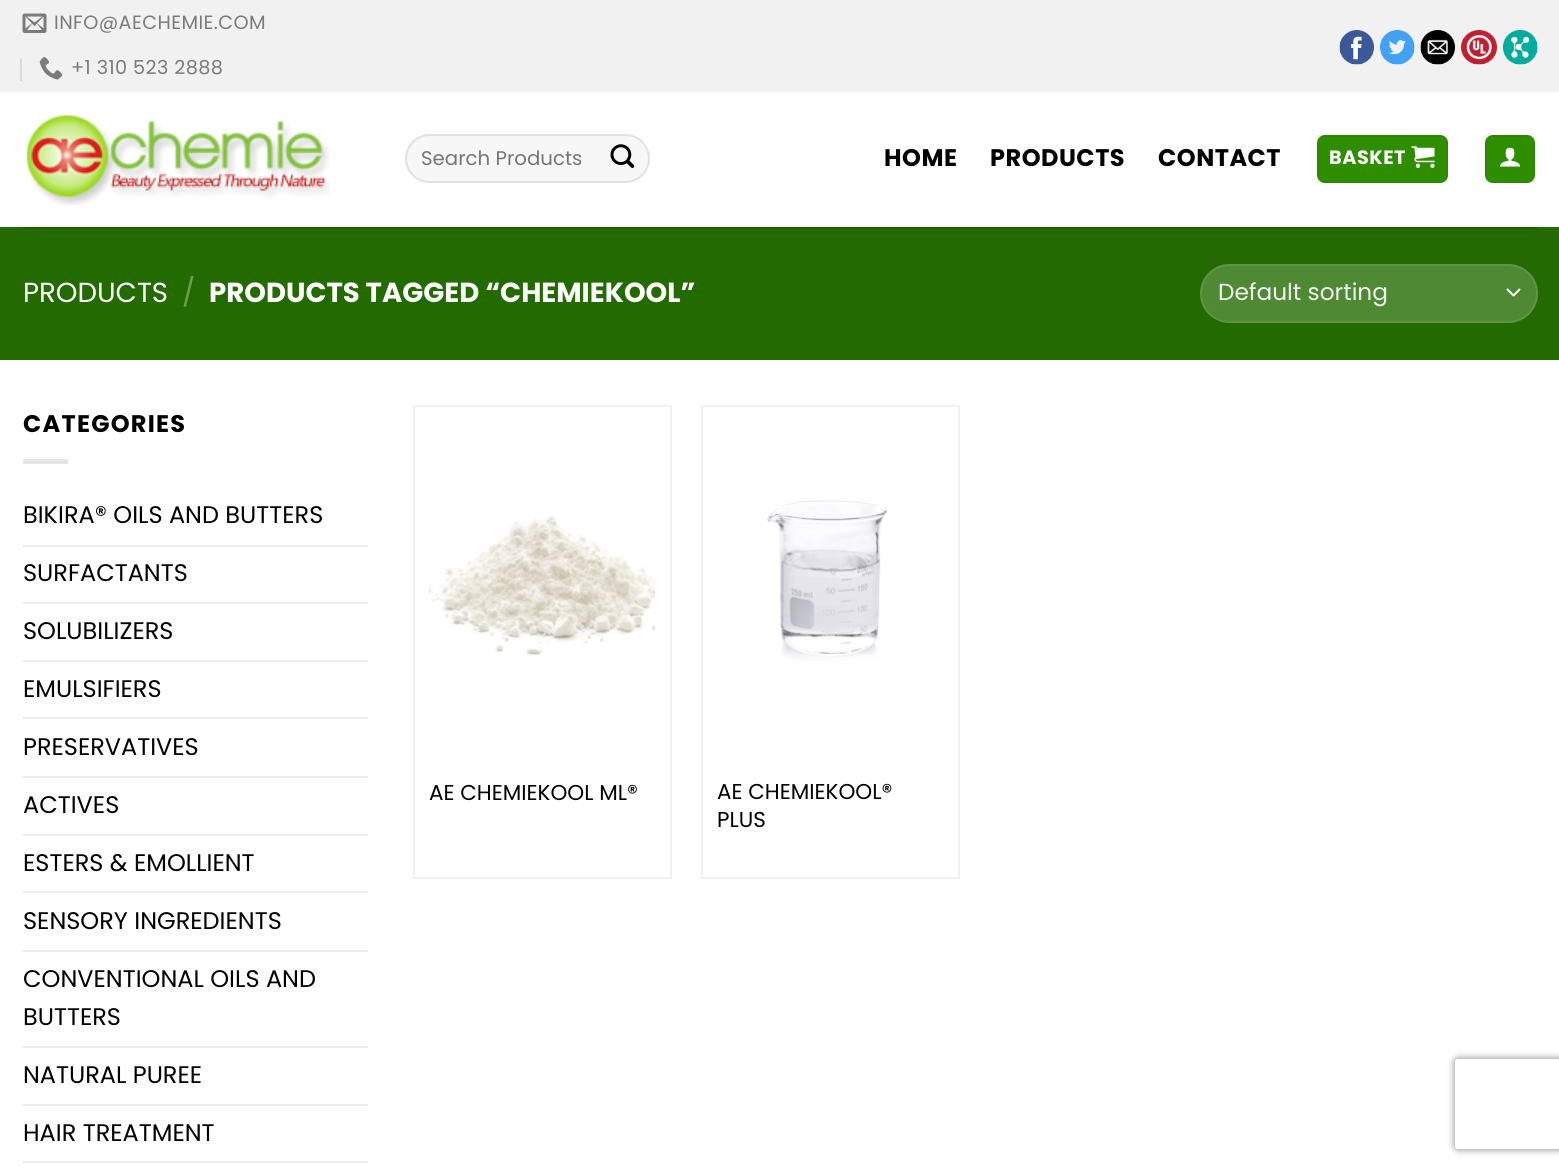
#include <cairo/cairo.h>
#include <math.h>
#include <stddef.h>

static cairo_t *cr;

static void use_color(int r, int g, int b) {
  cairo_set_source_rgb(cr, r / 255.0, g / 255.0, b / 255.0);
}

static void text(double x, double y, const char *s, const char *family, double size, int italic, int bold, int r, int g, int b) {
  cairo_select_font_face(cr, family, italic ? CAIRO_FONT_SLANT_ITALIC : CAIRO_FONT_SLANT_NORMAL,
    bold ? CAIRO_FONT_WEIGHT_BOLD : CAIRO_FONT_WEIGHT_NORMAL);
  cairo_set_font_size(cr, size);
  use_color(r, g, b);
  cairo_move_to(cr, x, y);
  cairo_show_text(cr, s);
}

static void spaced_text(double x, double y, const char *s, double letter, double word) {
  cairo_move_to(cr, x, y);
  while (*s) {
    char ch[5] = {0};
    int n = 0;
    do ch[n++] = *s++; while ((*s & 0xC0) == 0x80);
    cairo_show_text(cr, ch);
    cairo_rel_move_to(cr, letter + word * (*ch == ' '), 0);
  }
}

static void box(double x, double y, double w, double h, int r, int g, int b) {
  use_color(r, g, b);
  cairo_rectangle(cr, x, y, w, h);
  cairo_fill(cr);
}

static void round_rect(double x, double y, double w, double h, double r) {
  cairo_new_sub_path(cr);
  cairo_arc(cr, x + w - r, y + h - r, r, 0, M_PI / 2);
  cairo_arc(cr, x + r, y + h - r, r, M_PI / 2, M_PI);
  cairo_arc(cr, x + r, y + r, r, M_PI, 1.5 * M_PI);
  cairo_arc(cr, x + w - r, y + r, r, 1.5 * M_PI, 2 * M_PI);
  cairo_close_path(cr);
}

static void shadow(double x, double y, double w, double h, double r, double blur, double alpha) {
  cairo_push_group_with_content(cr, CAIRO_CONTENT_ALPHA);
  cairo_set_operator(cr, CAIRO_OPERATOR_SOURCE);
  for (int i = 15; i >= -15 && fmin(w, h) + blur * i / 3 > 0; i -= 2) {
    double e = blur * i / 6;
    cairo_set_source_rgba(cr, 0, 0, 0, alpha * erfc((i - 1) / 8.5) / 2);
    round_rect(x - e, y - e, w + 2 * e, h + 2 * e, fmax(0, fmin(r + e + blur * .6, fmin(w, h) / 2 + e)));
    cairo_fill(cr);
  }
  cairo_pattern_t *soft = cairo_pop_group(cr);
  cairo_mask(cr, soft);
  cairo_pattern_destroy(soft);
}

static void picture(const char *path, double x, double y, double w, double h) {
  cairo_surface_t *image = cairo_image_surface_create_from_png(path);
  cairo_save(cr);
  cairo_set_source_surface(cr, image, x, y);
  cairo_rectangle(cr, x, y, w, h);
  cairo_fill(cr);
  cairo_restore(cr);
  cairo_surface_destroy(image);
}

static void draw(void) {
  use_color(255, 255, 255);
  cairo_paint(cr);
  box(0, 0, 1559, 92, 241, 241, 241);
  picture("img_01.png", 22, 13, 25, 20);
  box(20, 59, 2, 22, 217, 217, 217);
  picture("img_02.png", 39, 57, 24, 23);
  picture("img_03.png", 1339, 30, 35, 35);
  picture("img_04.png", 1380, 30, 35, 35);
  picture("img_05.png", 1420, 30, 35, 35);
  picture("img_06.png", 1461, 30, 36, 35);
  picture("img_07.png", 1503, 30, 35, 35);
  picture("img_08.png", 26, 115, 304, 91);
  use_color(247, 247, 247);
  round_rect(405, 134, 245, 49, 24.5);
  cairo_fill(cr);
  round_rect(406, 135, 243, 47, 23.5);
  cairo_set_source_rgba(cr, 0, 0, 0, 0.09);
  cairo_stroke(cr);
  picture("img_09.png", 610, 144, 25, 24);
  use_color(47, 142, 0);
  round_rect(1317, 135, 131, 48, 8);
  cairo_fill(cr);
  cairo_rectangle(cr, 1318, 136, 129, 46);
  cairo_set_source_rgba(cr, 0, 0, 0, 0.05);
  cairo_stroke(cr);
  picture("img_10.png", 1411, 146, 24, 22);
  use_color(47, 142, 0);
  round_rect(1485, 135, 50, 48, 8);
  cairo_fill(cr);
  cairo_rectangle(cr, 1486, 136, 48, 46);
  cairo_set_source_rgba(cr, 0, 0, 0, 0.05);
  cairo_stroke(cr);
  picture("img_11.png", 1500, 147, 21, 20);
  box(0, 227, 1559, 133, 35, 107, 0);
  box(23, 227, 1515, 2, 32, 96, 0);
  use_color(79, 137, 51);
  round_rect(1200, 264, 338, 59, 29.5);
  cairo_fill(cr);
  cairo_new_path(cr);
  cairo_move_to(cr, 1507.5, 289.5);
  cairo_line_to(cr, 1513.5, 295.5);
  cairo_line_to(cr, 1519.5, 289.5);
  use_color(255, 255, 255);
  cairo_set_line_cap(cr, CAIRO_LINE_CAP_ROUND);
  cairo_set_line_join(cr, CAIRO_LINE_JOIN_ROUND);
  cairo_stroke(cr);
  round_rect(1201, 265, 336, 57, 28.5);
  cairo_set_source_rgba(cr, 1, 1, 1, 0.09);
  cairo_set_line_cap(cr, CAIRO_LINE_CAP_BUTT);
  cairo_set_line_join(cr, CAIRO_LINE_JOIN_MITER);
  cairo_stroke(cr);
  box(23, 459, 45, 5, 230, 230, 230);
  box(23, 545, 345, 2, 236, 236, 236);
  box(23, 602, 345, 2, 236, 236, 236);
  box(23, 660, 345, 2, 236, 236, 236);
  box(23, 717, 345, 2, 236, 236, 236);
  box(23, 776, 345, 2, 236, 236, 236);
  box(23, 834, 345, 2, 236, 236, 236);
  box(23, 891, 345, 2, 236, 236, 236);
  box(23, 950, 345, 2, 236, 236, 236);
  box(23, 1046, 345, 2, 236, 236, 236);
  box(23, 1104, 345, 2, 236, 236, 236);
  box(23, 1161, 345, 2, 236, 236, 236);
  cairo_rectangle(cr, 414, 406, 257, 472);
  use_color(241, 241, 241);
  cairo_stroke(cr);
  picture("img_12.png", 429, 515, 227, 142);
  cairo_rectangle(cr, 702, 406, 257, 472);
  cairo_stroke(cr);
  picture("img_13.png", 767, 500, 121, 161);
  cairo_save(cr);
  cairo_set_fill_rule(cr, CAIRO_FILL_RULE_EVEN_ODD);
  cairo_new_path(cr);
  cairo_move_to(cr, 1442, 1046);
  cairo_line_to(cr, 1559, 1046);
  cairo_line_to(cr, 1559, 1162);
  cairo_line_to(cr, 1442, 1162);
  cairo_close_path(cr);
  cairo_move_to(cr, 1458, 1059);
  cairo_line_to(cr, 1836, 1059);
  cairo_curve_to(cr, 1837.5, 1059, 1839, 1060.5, 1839, 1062);
  cairo_line_to(cr, 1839, 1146);
  cairo_curve_to(cr, 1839, 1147.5, 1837.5, 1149, 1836, 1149);
  cairo_line_to(cr, 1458, 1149);
  cairo_curve_to(cr, 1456.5, 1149, 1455, 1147.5, 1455, 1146);
  cairo_line_to(cr, 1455, 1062);
  cairo_curve_to(cr, 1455, 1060.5, 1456.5, 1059, 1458, 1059);
  cairo_close_path(cr);
  cairo_clip(cr);
  use_color(128, 128, 128);
  shadow(1455, 1059, 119, 90, 3, 4, 1);
  cairo_restore(cr);
  cairo_select_font_face(cr, "Poppins", CAIRO_FONT_SLANT_NORMAL, CAIRO_FONT_WEIGHT_NORMAL);
  cairo_set_font_size(cr, 19.25);
  use_color(123, 123, 123);
  spaced_text(54, 29, "INFO@AECHEMIE.COM", 0.4, 0);
  spaced_text(71, 74, "+1 310 523 2888", 0.4, 0);
  text(421, 165, "Search Products", "Poppins", 19.75, 0, 0, 117, 117, 117);
  cairo_select_font_face(cr, "Poppins", CAIRO_FONT_SLANT_NORMAL, CAIRO_FONT_WEIGHT_BOLD);
  cairo_set_font_size(cr, 24);
  use_color(0, 0, 0);
  spaced_text(884, 166, "HOME", 0.5, 0);
  spaced_text(990, 166, "PRODUCTS", 0.5, 0);
  spaced_text(1158, 166, "CONTACT", 0.5, 0);
  cairo_set_font_size(cr, 19.25);
  use_color(255, 255, 255);
  spaced_text(1329, 164, "BASKET", 0.5, 0);
  text(23, 302, "PRODUCTS", "Poppins", 27.6, 0, 0, 255, 255, 255);
  text(182, 302, "/", "Poppins", 27.6, 0, 0, 112, 159, 89);
  text(209, 302, "PRODUCTS TAGGED “CHEMIEKOOL”", "Poppins", 27.6, 0, 1, 255, 255, 255);
  text(1218, 300, "Default sorting", "Poppins", 23.25, 0, 0, 241, 241, 241);
  cairo_select_font_face(cr, "Poppins", CAIRO_FONT_SLANT_NORMAL, CAIRO_FONT_WEIGHT_BOLD);
  cairo_set_font_size(cr, 24);
  use_color(0, 0, 0);
  spaced_text(23, 432, "CATEGORIES", 1.25, 0);
  text(23, 523, "BIKIRA® OILS AND BUTTERS", "Poppins", 24, 0, 0, 0, 0, 0);
  text(23, 581, "SURFACTANTS", "Poppins", 24, 0, 0, 0, 0, 0);
  text(23, 639, "SOLUBILIZERS", "Poppins", 24, 0, 0, 0, 0, 0);
  text(23, 697, "EMULSIFIERS", "Poppins", 24, 0, 0, 0, 0, 0);
  text(23, 755, "PRESERVATIVES", "Poppins", 24, 0, 0, 0, 0, 0);
  text(23, 813, "ACTIVES", "Poppins", 24, 0, 0, 0, 0, 0);
  text(23, 871, "ESTERS & EMOLLIENT", "Poppins", 24, 0, 0, 0, 0, 0);
  text(23, 929, "SENSORY INGREDIENTS", "Poppins", 24, 0, 0, 0, 0, 0);
  text(23, 987, "CONVENTIONAL OILS AND", "Poppins", 24, 0, 0, 0, 0, 0);
  text(23, 1025, "BUTTERS", "Poppins", 24, 0, 0, 0, 0, 0);
  text(23, 1083, "NATURAL PUREE", "Poppins", 24, 0, 0, 0, 0, 0);
  text(23, 1141, "HAIR TREATMENT", "Poppins", 24, 0, 0, 0, 0, 0);
  text(429, 800, "AE CHEMIEKOOL ML®", "Poppins", 21.5, 0, 0, 0, 0, 0);
  text(717, 799, "AE CHEMIEKOOL®", "Poppins", 21.5, 0, 0, 0, 0, 0);
  text(717, 827, "PLUS", "Poppins", 21.5, 0, 0, 0, 0, 0);
}

int main(void) {
  cairo_surface_t *surface = cairo_image_surface_create(CAIRO_FORMAT_RGB24, 1559, 1169);
  cr = cairo_create(surface);
  cairo_font_options_t *options = cairo_font_options_create();
  cairo_font_options_set_hint_metrics(options, CAIRO_HINT_METRICS_OFF);
  cairo_font_options_set_hint_style(options, CAIRO_HINT_STYLE_NONE);
  cairo_set_font_options(cr, options);
  cairo_set_miter_limit(cr, 4);
  draw();
  cairo_surface_write_to_png(surface, "out.png");
  cairo_font_options_destroy(options);
  cairo_destroy(cr);
  cairo_surface_destroy(surface);
  return 0;
}
